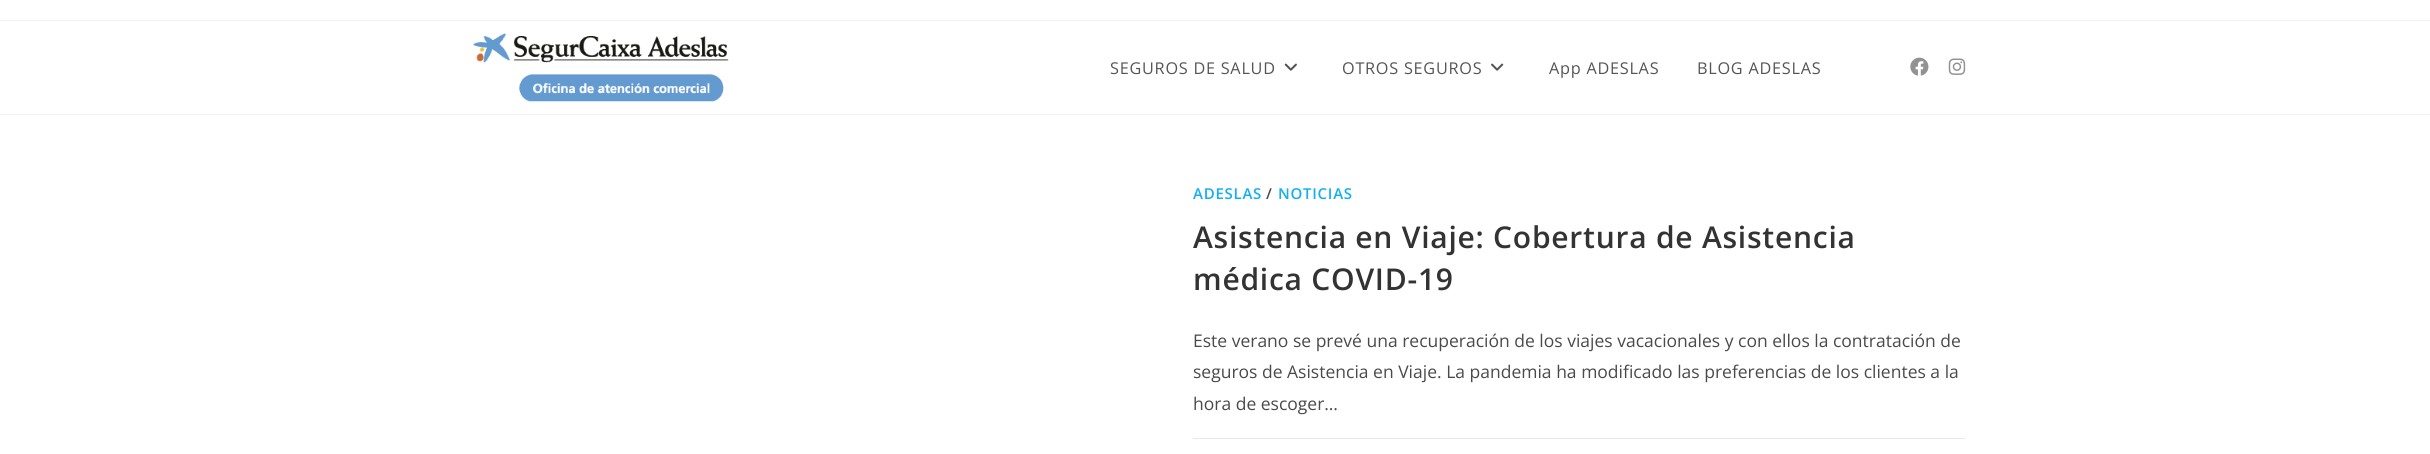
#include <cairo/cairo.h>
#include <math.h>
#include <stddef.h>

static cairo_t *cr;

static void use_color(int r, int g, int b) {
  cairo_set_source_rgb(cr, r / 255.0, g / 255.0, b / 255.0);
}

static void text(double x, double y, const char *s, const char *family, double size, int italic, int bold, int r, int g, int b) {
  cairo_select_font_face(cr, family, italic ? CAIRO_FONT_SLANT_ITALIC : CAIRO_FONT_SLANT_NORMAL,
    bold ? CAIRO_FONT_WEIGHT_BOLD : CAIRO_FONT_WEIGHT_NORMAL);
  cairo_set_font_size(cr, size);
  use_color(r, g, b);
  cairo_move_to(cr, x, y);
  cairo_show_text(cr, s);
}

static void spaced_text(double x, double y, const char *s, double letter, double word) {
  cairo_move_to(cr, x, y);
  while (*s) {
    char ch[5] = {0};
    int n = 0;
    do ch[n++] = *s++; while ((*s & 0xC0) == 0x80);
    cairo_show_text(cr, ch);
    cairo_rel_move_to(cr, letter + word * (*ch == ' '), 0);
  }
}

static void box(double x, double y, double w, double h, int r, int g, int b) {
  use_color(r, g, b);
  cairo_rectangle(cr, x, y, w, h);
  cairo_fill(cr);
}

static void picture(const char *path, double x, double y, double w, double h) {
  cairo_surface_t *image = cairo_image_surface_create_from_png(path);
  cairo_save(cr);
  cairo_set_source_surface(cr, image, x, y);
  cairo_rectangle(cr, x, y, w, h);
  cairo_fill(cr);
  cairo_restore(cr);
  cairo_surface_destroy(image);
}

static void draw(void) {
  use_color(255, 255, 255);
  cairo_paint(cr);
  box(0, 20, 2430, 1, 241, 241, 241);
  box(0, 114, 2430, 1, 241, 241, 241);
  picture("img_01.png", 473, 33, 256, 69);
  picture("img_02.png", 1284, 63, 13, 8);
  picture("img_03.png", 1491, 63, 13, 8);
  picture("img_04.png", 1910, 57, 19, 19);
  picture("img_05.png", 1948, 58, 18, 17);
  box(1193, 438, 772, 1, 233, 233, 233);
  cairo_select_font_face(cr, "Open Sans", CAIRO_FONT_SLANT_NORMAL, CAIRO_FONT_WEIGHT_NORMAL);
  cairo_set_font_size(cr, 16.25);
  use_color(85, 85, 85);
  spaced_text(1110, 74, "SEGUROS DE SALUD", 0.75, 0);
  spaced_text(1342, 74, "OTROS SEGUROS", 0.75, 0);
  spaced_text(1549, 74, "App ADESLAS", 0.75, 0);
  spaced_text(1697, 74, "BLOG ADESLAS", 0.75, 0);
  cairo_select_font_face(cr, "Open Sans SemiBold", CAIRO_FONT_SLANT_NORMAL, CAIRO_FONT_WEIGHT_NORMAL);
  cairo_set_font_size(cr, 15);
  use_color(19, 175, 240);
  spaced_text(1193, 199, "ADESLAS", 0.75, 0);
  use_color(74, 74, 74);
  spaced_text(1266, 199, "/", 0.75, 0);
  use_color(19, 175, 240);
  spaced_text(1278, 199, "NOTICIAS", 0.75, 0);
  cairo_set_font_size(cr, 30);
  use_color(51, 51, 51);
  spaced_text(1193, 248, "Asistencia en Viaje: Cobertura de Asistencia", 0.75, 0);
  spaced_text(1193, 290, "médica COVID-19", 0.75, 0);
  text(1193, 347, "Este verano se prevé una recuperación de los viajes vacacionales y con ellos la contratación de", "Open Sans", 17.5, 0, 0, 74, 74, 74);
  text(1193, 378, "seguros de Asistencia en Viaje. La pandemia ha modificado las preferencias de los clientes a la", "Open Sans", 17.5, 0, 0, 74, 74, 74);
  text(1193, 410, "hora de escoger…", "Open Sans", 17.5, 0, 0, 74, 74, 74);
}

int main(void) {
  cairo_surface_t *surface = cairo_image_surface_create(CAIRO_FORMAT_RGB24, 2430, 454);
  cr = cairo_create(surface);
  cairo_font_options_t *options = cairo_font_options_create();
  cairo_font_options_set_hint_metrics(options, CAIRO_HINT_METRICS_OFF);
  cairo_font_options_set_hint_style(options, CAIRO_HINT_STYLE_NONE);
  cairo_set_font_options(cr, options);
  cairo_set_miter_limit(cr, 4);
  draw();
  cairo_surface_write_to_png(surface, "out.png");
  cairo_font_options_destroy(options);
  cairo_destroy(cr);
  cairo_surface_destroy(surface);
  return 0;
}
